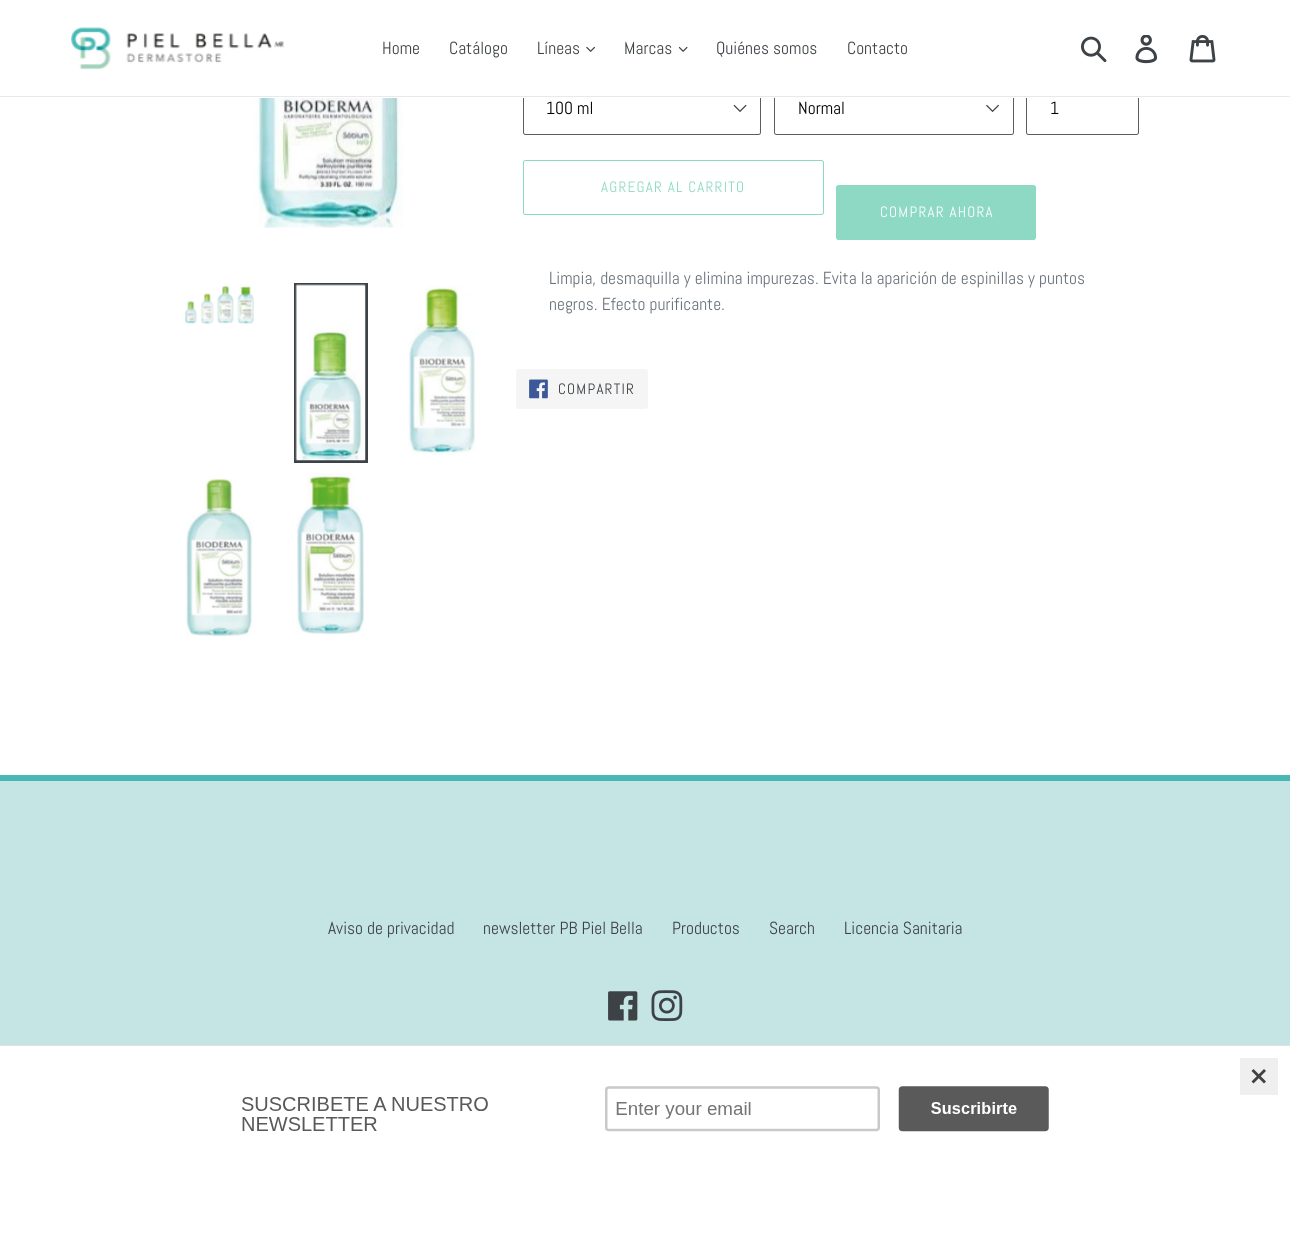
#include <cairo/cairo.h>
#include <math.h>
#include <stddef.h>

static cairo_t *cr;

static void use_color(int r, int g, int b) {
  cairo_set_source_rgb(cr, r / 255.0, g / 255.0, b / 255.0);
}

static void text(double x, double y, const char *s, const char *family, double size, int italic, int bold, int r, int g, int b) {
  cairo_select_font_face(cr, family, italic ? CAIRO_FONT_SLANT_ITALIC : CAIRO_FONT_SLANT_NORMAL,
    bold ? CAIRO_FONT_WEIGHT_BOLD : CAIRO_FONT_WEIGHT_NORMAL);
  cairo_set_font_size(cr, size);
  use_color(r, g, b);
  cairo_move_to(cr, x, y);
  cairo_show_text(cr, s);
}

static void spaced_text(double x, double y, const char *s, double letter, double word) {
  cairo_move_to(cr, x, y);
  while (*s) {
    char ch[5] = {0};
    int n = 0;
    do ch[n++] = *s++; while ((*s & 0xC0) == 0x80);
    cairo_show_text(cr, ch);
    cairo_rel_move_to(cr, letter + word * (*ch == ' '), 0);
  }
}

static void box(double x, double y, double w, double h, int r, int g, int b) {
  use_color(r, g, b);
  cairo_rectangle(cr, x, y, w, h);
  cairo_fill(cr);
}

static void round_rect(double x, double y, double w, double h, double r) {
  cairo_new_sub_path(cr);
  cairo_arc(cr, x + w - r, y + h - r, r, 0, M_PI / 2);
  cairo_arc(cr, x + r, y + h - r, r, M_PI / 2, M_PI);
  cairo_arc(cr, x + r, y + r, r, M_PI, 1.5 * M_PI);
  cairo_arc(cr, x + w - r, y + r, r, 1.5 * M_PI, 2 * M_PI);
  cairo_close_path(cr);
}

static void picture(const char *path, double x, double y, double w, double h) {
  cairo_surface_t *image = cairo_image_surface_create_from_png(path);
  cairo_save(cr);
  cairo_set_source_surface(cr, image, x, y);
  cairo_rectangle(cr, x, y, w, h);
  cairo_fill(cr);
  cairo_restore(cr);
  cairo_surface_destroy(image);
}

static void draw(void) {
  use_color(255, 255, 255);
  cairo_paint(cr);
  picture("img_13.png", 733, 104, 14, 8);
  round_rect(523.5, 80.5, 237, 54, 2);
  use_color(90, 94, 98);
  cairo_set_line_width(cr, 1);
  cairo_stroke(cr);
  picture("img_14.png", 986, 104, 13, 9);
  round_rect(774.5, 80.5, 239, 54, 2);
  cairo_stroke(cr);
  round_rect(1026.5, 80.5, 112, 54, 2);
  cairo_stroke(cr);
  box(523, 80, 616, 18, 255, 255, 255);
  box(0, 96, 1290, 1, 232, 233, 235);
  picture("img_01.png", 71, 27, 213, 43);
  picture("img_02.png", 586, 46, 9, 6);
  picture("img_03.png", 679, 46, 9, 6);
  picture("img_04.png", 1081, 36, 26, 27);
  picture("img_05.png", 1135, 35, 23, 29);
  picture("img_06.png", 1189, 35, 27, 28);
  picture("img_07.png", 253, 98, 150, 130);
  picture("img_08.png", 184, 286, 70, 38);
  cairo_rectangle(cr, 295.5, 284.5, 71, 177);
  use_color(61, 66, 70);
  cairo_set_line_width(cr, 3);
  cairo_stroke(cr);
  picture("img_09.png", 295, 284, 71, 177);
  picture("img_10.png", 408, 285, 68, 171);
  picture("img_11.png", 186, 478, 67, 159);
  picture("img_12.png", 296, 473, 68, 162);
  round_rect(523.5, 160.5, 300, 54, 2);
  use_color(141, 217, 196);
  cairo_set_line_width(cr, 1);
  cairo_stroke(cr);
  round_rect(836, 185, 200, 55, 2.5);
  cairo_fill(cr);
  use_color(245, 245, 245);
  round_rect(516, 369, 132, 40, 2.5);
  cairo_fill(cr);
  picture("img_15.png", 529, 379, 19, 20);
  box(0, 781, 1290, 264, 197, 228, 228);
  box(0, 775, 1290, 6, 71, 184, 179);
  picture("img_16.png", 608, 991, 30, 30);
  picture("img_17.png", 651, 990, 32, 31);
  box(0, 1045, 1290, 1, 224, 224, 224);
  picture("img_18.png", 242, 1086, 807, 46);
  box(1240, 1058, 38, 37, 239, 239, 239);
  use_color(65, 65, 65);
  cairo_new_path(cr);
  cairo_move_to(cr, 1264, 1069);
  cairo_line_to(cr, 1266, 1071);
  cairo_line_to(cr, 1253.5, 1083.5);
  cairo_line_to(cr, 1251.5, 1081.5);
  cairo_close_path(cr);
  cairo_fill(cr);
  cairo_new_path(cr);
  cairo_move_to(cr, 1251.5, 1071);
  cairo_line_to(cr, 1253.5, 1069);
  cairo_line_to(cr, 1266, 1081.5);
  cairo_line_to(cr, 1264, 1083.5);
  cairo_close_path(cr);
  cairo_fill(cr);
  text(382, 54, "Home", "Abel", 17.5, 0, 0, 61, 66, 70);
  text(449, 54, "Catálogo", "Abel", 17.5, 0, 0, 61, 66, 70);
  text(537, 54, "Líneas", "Abel", 17.5, 0, 0, 61, 66, 70);
  text(624, 54, "Marcas", "Abel", 17.5, 0, 0, 61, 66, 70);
  text(716, 54, "Quiénes somos", "Abel", 17.5, 0, 0, 61, 66, 70);
  text(847, 54, "Contacto", "Abel", 17.5, 0, 0, 61, 66, 70);
  text(546, 114, "100 ml", "Abel", 17.5, 0, 0, 0, 0, 0);
  text(798, 114, "Normal", "Abel", 17.5, 0, 0, 0, 0, 0);
  text(1050, 114, "1", "Abel", 17.5, 0, 0, 0, 0, 0);
  cairo_set_font_size(cr, 15);
  use_color(141, 217, 196);
  spaced_text(601, 192, "AGREGAR AL CARRITO", 1.25, 0);
  use_color(255, 255, 255);
  spaced_text(880, 217, "COMPRAR AHORA", 1.25, 0);
  text(549, 284, "Limpia, desmaquilla y elimina impurezas. Evita la aparición de espinillas y puntos", "Abel", 17.5, 0, 0, 105, 114, 123);
  text(549, 310, "negros. Efecto purificante.", "Abel", 17.5, 0, 0, 105, 114, 123);
  cairo_set_font_size(cr, 15);
  use_color(61, 66, 70);
  spaced_text(558, 394, "COMPARTIR", 1.25, 0);
  text(328, 934, "Aviso de privacidad", "Abel", 17.5, 0, 0, 61, 66, 70);
  text(483, 934, "newsletter PB Piel Bella", "Abel", 17.5, 0, 0, 61, 66, 70);
  text(672, 934, "Productos", "Abel", 17.5, 0, 0, 61, 66, 70);
  text(769, 934, "Search", "Abel", 17.5, 0, 0, 61, 66, 70);
  text(844, 934, "Licencia Sanitaria", "Abel", 17.5, 0, 0, 61, 66, 70);
}

int main(void) {
  cairo_surface_t *surface = cairo_image_surface_create(CAIRO_FORMAT_RGB24, 1290, 1233);
  cr = cairo_create(surface);
  cairo_font_options_t *options = cairo_font_options_create();
  cairo_font_options_set_hint_metrics(options, CAIRO_HINT_METRICS_OFF);
  cairo_font_options_set_hint_style(options, CAIRO_HINT_STYLE_NONE);
  cairo_set_font_options(cr, options);
  cairo_set_miter_limit(cr, 4);
  draw();
  cairo_surface_write_to_png(surface, "out.png");
  cairo_font_options_destroy(options);
  cairo_destroy(cr);
  cairo_surface_destroy(surface);
  return 0;
}
